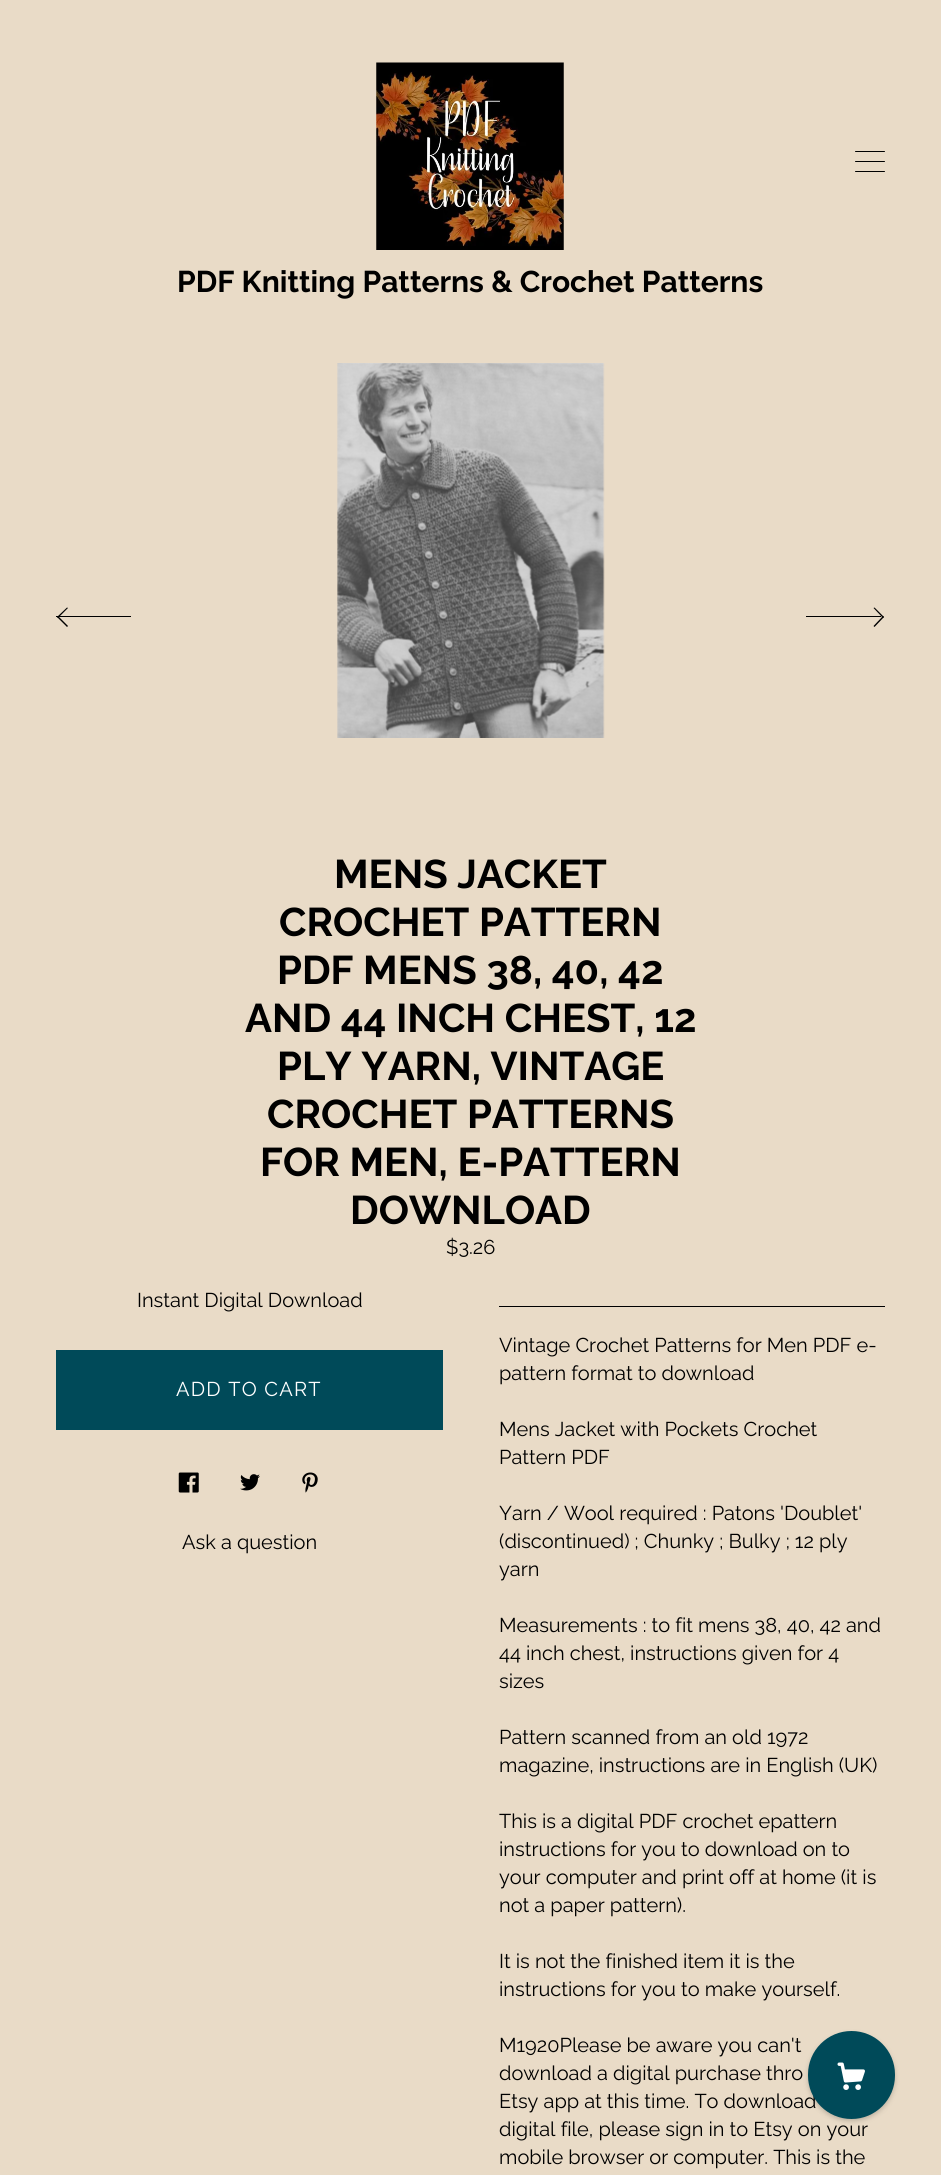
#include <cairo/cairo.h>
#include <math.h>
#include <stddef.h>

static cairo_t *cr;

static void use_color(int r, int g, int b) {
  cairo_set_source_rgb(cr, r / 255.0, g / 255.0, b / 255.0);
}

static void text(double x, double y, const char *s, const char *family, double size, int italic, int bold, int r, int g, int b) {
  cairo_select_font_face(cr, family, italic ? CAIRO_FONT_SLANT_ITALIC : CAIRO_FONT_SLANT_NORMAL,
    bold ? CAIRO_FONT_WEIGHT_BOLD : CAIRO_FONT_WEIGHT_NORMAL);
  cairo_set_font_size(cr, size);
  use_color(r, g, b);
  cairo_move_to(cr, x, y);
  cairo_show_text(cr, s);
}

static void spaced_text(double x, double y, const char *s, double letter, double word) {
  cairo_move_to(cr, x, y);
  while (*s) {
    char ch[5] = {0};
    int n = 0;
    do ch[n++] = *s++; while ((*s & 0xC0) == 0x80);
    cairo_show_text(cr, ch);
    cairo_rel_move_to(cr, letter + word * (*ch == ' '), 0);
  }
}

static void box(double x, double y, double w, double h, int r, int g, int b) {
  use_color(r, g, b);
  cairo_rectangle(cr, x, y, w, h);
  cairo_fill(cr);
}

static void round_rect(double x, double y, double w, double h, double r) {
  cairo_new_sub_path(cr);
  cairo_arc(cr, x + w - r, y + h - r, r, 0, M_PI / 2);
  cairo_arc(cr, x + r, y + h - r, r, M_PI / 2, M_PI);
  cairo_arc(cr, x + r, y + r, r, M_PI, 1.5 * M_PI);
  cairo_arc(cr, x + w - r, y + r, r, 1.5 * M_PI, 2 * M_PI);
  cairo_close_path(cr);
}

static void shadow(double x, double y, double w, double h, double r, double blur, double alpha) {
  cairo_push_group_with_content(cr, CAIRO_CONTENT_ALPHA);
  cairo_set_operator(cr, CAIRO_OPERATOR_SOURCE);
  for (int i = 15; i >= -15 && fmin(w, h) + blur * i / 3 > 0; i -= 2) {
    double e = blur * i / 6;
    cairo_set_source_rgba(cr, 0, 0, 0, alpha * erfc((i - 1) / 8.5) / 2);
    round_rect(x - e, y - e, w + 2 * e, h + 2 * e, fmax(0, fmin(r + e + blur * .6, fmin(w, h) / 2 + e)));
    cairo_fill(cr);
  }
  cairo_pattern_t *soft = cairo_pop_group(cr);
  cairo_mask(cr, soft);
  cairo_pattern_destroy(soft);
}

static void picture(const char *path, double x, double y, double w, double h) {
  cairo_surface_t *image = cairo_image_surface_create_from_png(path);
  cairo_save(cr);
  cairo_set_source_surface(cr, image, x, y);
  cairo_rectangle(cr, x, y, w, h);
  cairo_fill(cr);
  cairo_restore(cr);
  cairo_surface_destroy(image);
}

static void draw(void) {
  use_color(233, 219, 199);
  cairo_paint(cr);
  picture("img_01.png", 376, 62, 188, 188);
  use_color(0, 0, 0);
  round_rect(855, 151, 30, 1, 0.5);
  cairo_fill(cr);
  round_rect(855, 161, 30, 1, 0.5);
  cairo_fill(cr);
  round_rect(855, 171, 30, 1, 0.5);
  cairo_fill(cr);
  picture("img_02.png", 337, 363, 268, 375);
  cairo_new_path(cr);
  cairo_move_to(cr, 68, 626);
  cairo_line_to(cr, 67, 627);
  cairo_line_to(cr, 57, 617);
  cairo_line_to(cr, 58, 616);
  cairo_close_path(cr);
  cairo_fill(cr);
  cairo_new_path(cr);
  cairo_move_to(cr, 68, 608);
  cairo_line_to(cr, 58, 618);
  cairo_line_to(cr, 57, 617);
  cairo_line_to(cr, 67, 607.5);
  cairo_close_path(cr);
  cairo_fill(cr);
  box(56, 616, 75, 1, 0, 0, 0);
  cairo_new_path(cr);
  cairo_move_to(cr, 873.5, 608);
  cairo_line_to(cr, 874.5, 607.5);
  cairo_line_to(cr, 884, 617);
  cairo_line_to(cr, 883, 618);
  cairo_close_path(cr);
  cairo_fill(cr);
  cairo_new_path(cr);
  cairo_move_to(cr, 873.5, 626);
  cairo_line_to(cr, 883, 616);
  cairo_line_to(cr, 884, 617);
  cairo_line_to(cr, 874.5, 627);
  cairo_close_path(cr);
  cairo_fill(cr);
  box(806, 616, 75, 1, 0, 0, 0);
  box(56, 1350, 387, 80, 0, 74, 89);
  picture("img_03.png", 178, 1472, 21, 21);
  picture("img_04.png", 240, 1474, 20, 17);
  picture("img_05.png", 302, 1472, 16, 21);
  box(499, 1306, 386, 1, 0, 0, 0);
  use_color(0, 0, 0);
  shadow(808, 2034, 87, 87, 43.5, 2.5, 0.2);
  text(177, 292, "PDF Knitting Patterns & Crochet Patterns", "Raleway", 30, 0, 1, 0, 0, 0);
  text(334, 888, "MENS JACKET", "Raleway", 40, 0, 1, 0, 0, 0);
  text(279, 936, "CROCHET PATTERN", "Raleway", 40, 0, 1, 0, 0, 0);
  text(277, 984, "PDF MENS 38, 40, 42", "Raleway", 40, 0, 1, 0, 0, 0);
  text(245, 1032, "AND 44 INCH CHEST, 12", "Raleway", 40, 0, 1, 0, 0, 0);
  text(277, 1080, "PLY YARN, VINTAGE", "Raleway", 40, 0, 1, 0, 0, 0);
  text(267, 1128, "CROCHET PATTERNS", "Raleway", 40, 0, 1, 0, 0, 0);
  text(260, 1176, "FOR MEN, E-PATTERN", "Raleway", 40, 0, 1, 0, 0, 0);
  text(350, 1224, "DOWNLOAD", "Raleway", 40, 0, 1, 0, 0, 0);
  text(446, 1254, "$3.26", "Raleway", 20, 0, 0, 0, 0, 0);
  text(137, 1307, "Instant Digital Download", "Raleway", 20, 0, 0, 0, 0, 0);
  use_color(255, 255, 255);
  spaced_text(176, 1396, "ADD TO CART", 1.25, 0);
  text(182, 1549, "Ask a question", "Raleway", 20, 0, 0, 0, 0, 0);
  text(499, 1352, "Vintage Crochet Patterns for Men PDF e-", "Raleway", 20, 0, 0, 0, 0, 0);
  text(499, 1380, "pattern format to download", "Raleway", 20, 0, 0, 0, 0, 0);
  text(499, 1436, "Mens Jacket with Pockets Crochet", "Raleway", 20, 0, 0, 0, 0, 0);
  text(499, 1464, "Pattern PDF", "Raleway", 20, 0, 0, 0, 0, 0);
  text(499, 1520, "Yarn / Wool required : Patons 'Doublet'", "Raleway", 20, 0, 0, 0, 0, 0);
  text(499, 1548, "(discontinued) ; Chunky ; Bulky ; 12 ply", "Raleway", 20, 0, 0, 0, 0, 0);
  text(499, 1576, "yarn", "Raleway", 20, 0, 0, 0, 0, 0);
  text(499, 1632, "Measurements : to fit mens 38, 40, 42 and", "Raleway", 20, 0, 0, 0, 0, 0);
  text(499, 1660, "44 inch chest, instructions given for 4", "Raleway", 20, 0, 0, 0, 0, 0);
  text(499, 1688, "sizes", "Raleway", 20, 0, 0, 0, 0, 0);
  text(499, 1744, "Pattern scanned from an old 1972", "Raleway", 20, 0, 0, 0, 0, 0);
  text(499, 1772, "magazine, instructions are in English (UK)", "Raleway", 20, 0, 0, 0, 0, 0);
  text(499, 1828, "This is a digital PDF crochet epattern", "Raleway", 20, 0, 0, 0, 0, 0);
  text(499, 1856, "instructions for you to download on to", "Raleway", 20, 0, 0, 0, 0, 0);
  text(499, 1884, "your computer and print off at home (it is", "Raleway", 20, 0, 0, 0, 0, 0);
  text(499, 1912, "not a paper pattern).", "Raleway", 20, 0, 0, 0, 0, 0);
  text(499, 1968, "It is not the finished item it is the", "Raleway", 20, 0, 0, 0, 0, 0);
  text(499, 1996, "instructions for you to make yourself.", "Raleway", 20, 0, 0, 0, 0, 0);
  text(499, 2052, "M1920Please be aware you can't", "Raleway", 20, 0, 0, 0, 0, 0);
  text(499, 2080, "download a digital purchase thro", "Raleway", 20, 0, 0, 0, 0, 0);
  text(499, 2108, "Etsy app at this time. To download", "Raleway", 20, 0, 0, 0, 0, 0);
  text(499, 2136, "digital file, please sign in to Etsy on your", "Raleway", 20, 0, 0, 0, 0, 0);
  text(499, 2164, "mobile browser or computer. This is the", "Raleway", 20, 0, 0, 0, 0, 0);
  use_color(0, 74, 89);
  round_rect(808, 2031, 87, 88, 43.5);
  cairo_fill(cr);
  picture("img_06.png", 837, 2062, 28, 28);
}

int main(void) {
  cairo_surface_t *surface = cairo_image_surface_create(CAIRO_FORMAT_RGB24, 941, 2175);
  cr = cairo_create(surface);
  cairo_font_options_t *options = cairo_font_options_create();
  cairo_font_options_set_hint_metrics(options, CAIRO_HINT_METRICS_OFF);
  cairo_font_options_set_hint_style(options, CAIRO_HINT_STYLE_NONE);
  cairo_set_font_options(cr, options);
  cairo_set_miter_limit(cr, 4);
  draw();
  cairo_surface_write_to_png(surface, "out.png");
  cairo_font_options_destroy(options);
  cairo_destroy(cr);
  cairo_surface_destroy(surface);
  return 0;
}
